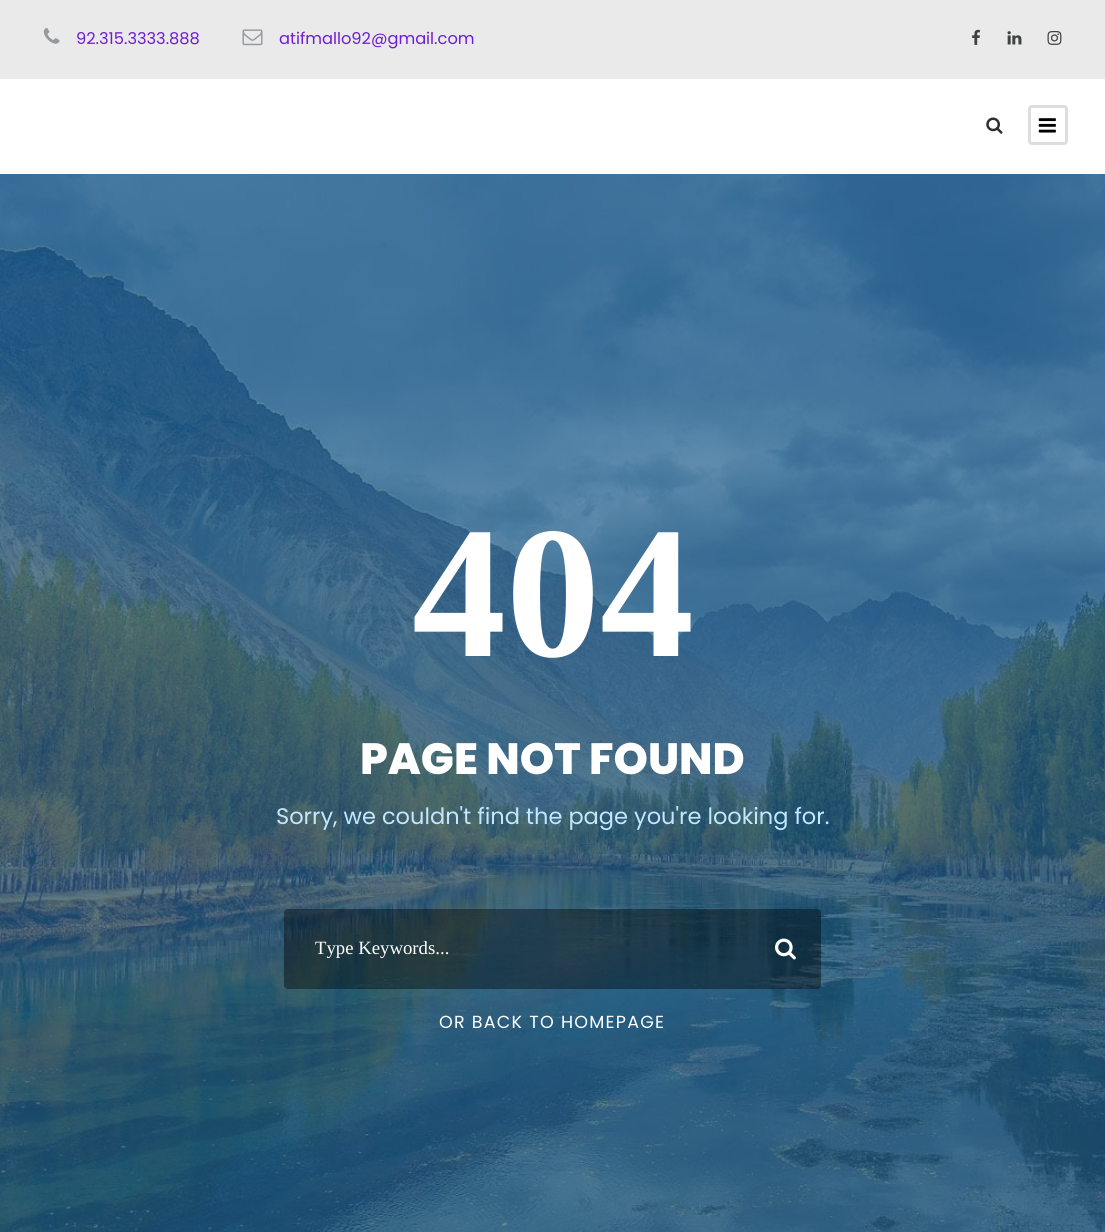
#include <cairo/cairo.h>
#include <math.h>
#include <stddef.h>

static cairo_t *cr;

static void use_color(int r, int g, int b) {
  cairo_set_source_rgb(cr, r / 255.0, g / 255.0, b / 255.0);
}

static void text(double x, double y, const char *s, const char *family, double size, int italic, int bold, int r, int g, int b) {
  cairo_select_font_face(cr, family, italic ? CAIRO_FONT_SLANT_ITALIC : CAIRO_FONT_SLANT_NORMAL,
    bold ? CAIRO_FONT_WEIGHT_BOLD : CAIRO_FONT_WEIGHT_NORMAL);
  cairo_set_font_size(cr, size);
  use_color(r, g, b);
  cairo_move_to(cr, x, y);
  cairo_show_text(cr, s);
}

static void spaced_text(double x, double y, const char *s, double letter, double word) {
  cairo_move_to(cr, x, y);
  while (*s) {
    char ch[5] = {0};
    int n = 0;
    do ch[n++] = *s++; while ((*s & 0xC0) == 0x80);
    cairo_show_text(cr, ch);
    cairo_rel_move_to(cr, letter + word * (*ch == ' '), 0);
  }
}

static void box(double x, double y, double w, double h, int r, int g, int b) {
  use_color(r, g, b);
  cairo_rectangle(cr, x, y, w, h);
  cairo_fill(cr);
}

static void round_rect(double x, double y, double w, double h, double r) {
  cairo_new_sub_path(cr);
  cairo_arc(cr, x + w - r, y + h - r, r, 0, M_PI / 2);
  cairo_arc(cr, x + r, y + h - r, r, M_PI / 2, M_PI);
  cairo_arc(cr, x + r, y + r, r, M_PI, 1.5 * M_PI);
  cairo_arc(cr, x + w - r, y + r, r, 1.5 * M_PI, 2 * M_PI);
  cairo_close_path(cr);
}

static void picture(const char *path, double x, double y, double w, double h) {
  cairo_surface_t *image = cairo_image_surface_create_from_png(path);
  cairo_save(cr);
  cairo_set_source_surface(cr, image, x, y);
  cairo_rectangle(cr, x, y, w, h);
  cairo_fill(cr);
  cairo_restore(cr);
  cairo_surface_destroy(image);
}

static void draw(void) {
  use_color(255, 255, 255);
  cairo_paint(cr);
  box(0, 78, 1105, 1, 233, 233, 233);
  box(0, 0, 1105, 78, 234, 234, 234);
  picture("img_01.png", 43, 28, 17, 16);
  picture("img_02.png", 242, 29, 21, 17);
  picture("img_03.png", 972, 29, 8, 16);
  picture("img_04.png", 1007, 31, 15, 14);
  picture("img_05.png", 1047, 31, 15, 14);
  picture("img_06.png", 986, 117, 17, 17);
  round_rect(1029.5, 106.5, 37, 37, 2.5);
  use_color(221, 221, 221);
  cairo_set_line_width(cr, 3);
  cairo_stroke(cr);
  picture("img_07.png", 1038, 118, 18, 15);
  box(0, 174, 1105, 1058, 35, 97, 142);
  picture("img_08.png", 0, 174, 1105, 1058);
  cairo_set_source_rgba(cr, 0, 0, 0, 0.4);
  round_rect(284, 909, 537, 80, 4);
  cairo_fill(cr);
  picture("img_09.png", 775, 938, 21, 22);
  text(76, 44, "92.315.3333.888", "Poppins", 16.25, 0, 0, 111, 29, 211);
  text(279, 44, "atifmallo92@gmail.com", "Poppins", 16.25, 0, 0, 111, 29, 211);
  text(412, 656, "404", "Liberation Serif", 188, 0, 1, 255, 255, 255);
  text(360, 774, "PAGE NOT FOUND", "Poppins ExtraBold", 43.75, 0, 0, 255, 255, 255);
  text(276, 824, "Sorry, we couldn't find the page you're looking for.", "Poppins", 22.5, 0, 0, 195, 231, 255);
  text(315, 954, "Type Keywords...", "Liberation Serif", 18.75, 0, 0, 255, 255, 255);
  cairo_select_font_face(cr, "Poppins", CAIRO_FONT_SLANT_NORMAL, CAIRO_FONT_WEIGHT_NORMAL);
  cairo_set_font_size(cr, 17.5);
  spaced_text(439, 1028, "OR BACK TO HOMEPAGE", 1.25, 0);
}

int main(void) {
  cairo_surface_t *surface = cairo_image_surface_create(CAIRO_FORMAT_RGB24, 1105, 1232);
  cr = cairo_create(surface);
  cairo_font_options_t *options = cairo_font_options_create();
  cairo_font_options_set_hint_metrics(options, CAIRO_HINT_METRICS_OFF);
  cairo_font_options_set_hint_style(options, CAIRO_HINT_STYLE_NONE);
  cairo_set_font_options(cr, options);
  cairo_set_miter_limit(cr, 4);
  draw();
  cairo_surface_write_to_png(surface, "out.png");
  cairo_font_options_destroy(options);
  cairo_destroy(cr);
  cairo_surface_destroy(surface);
  return 0;
}
